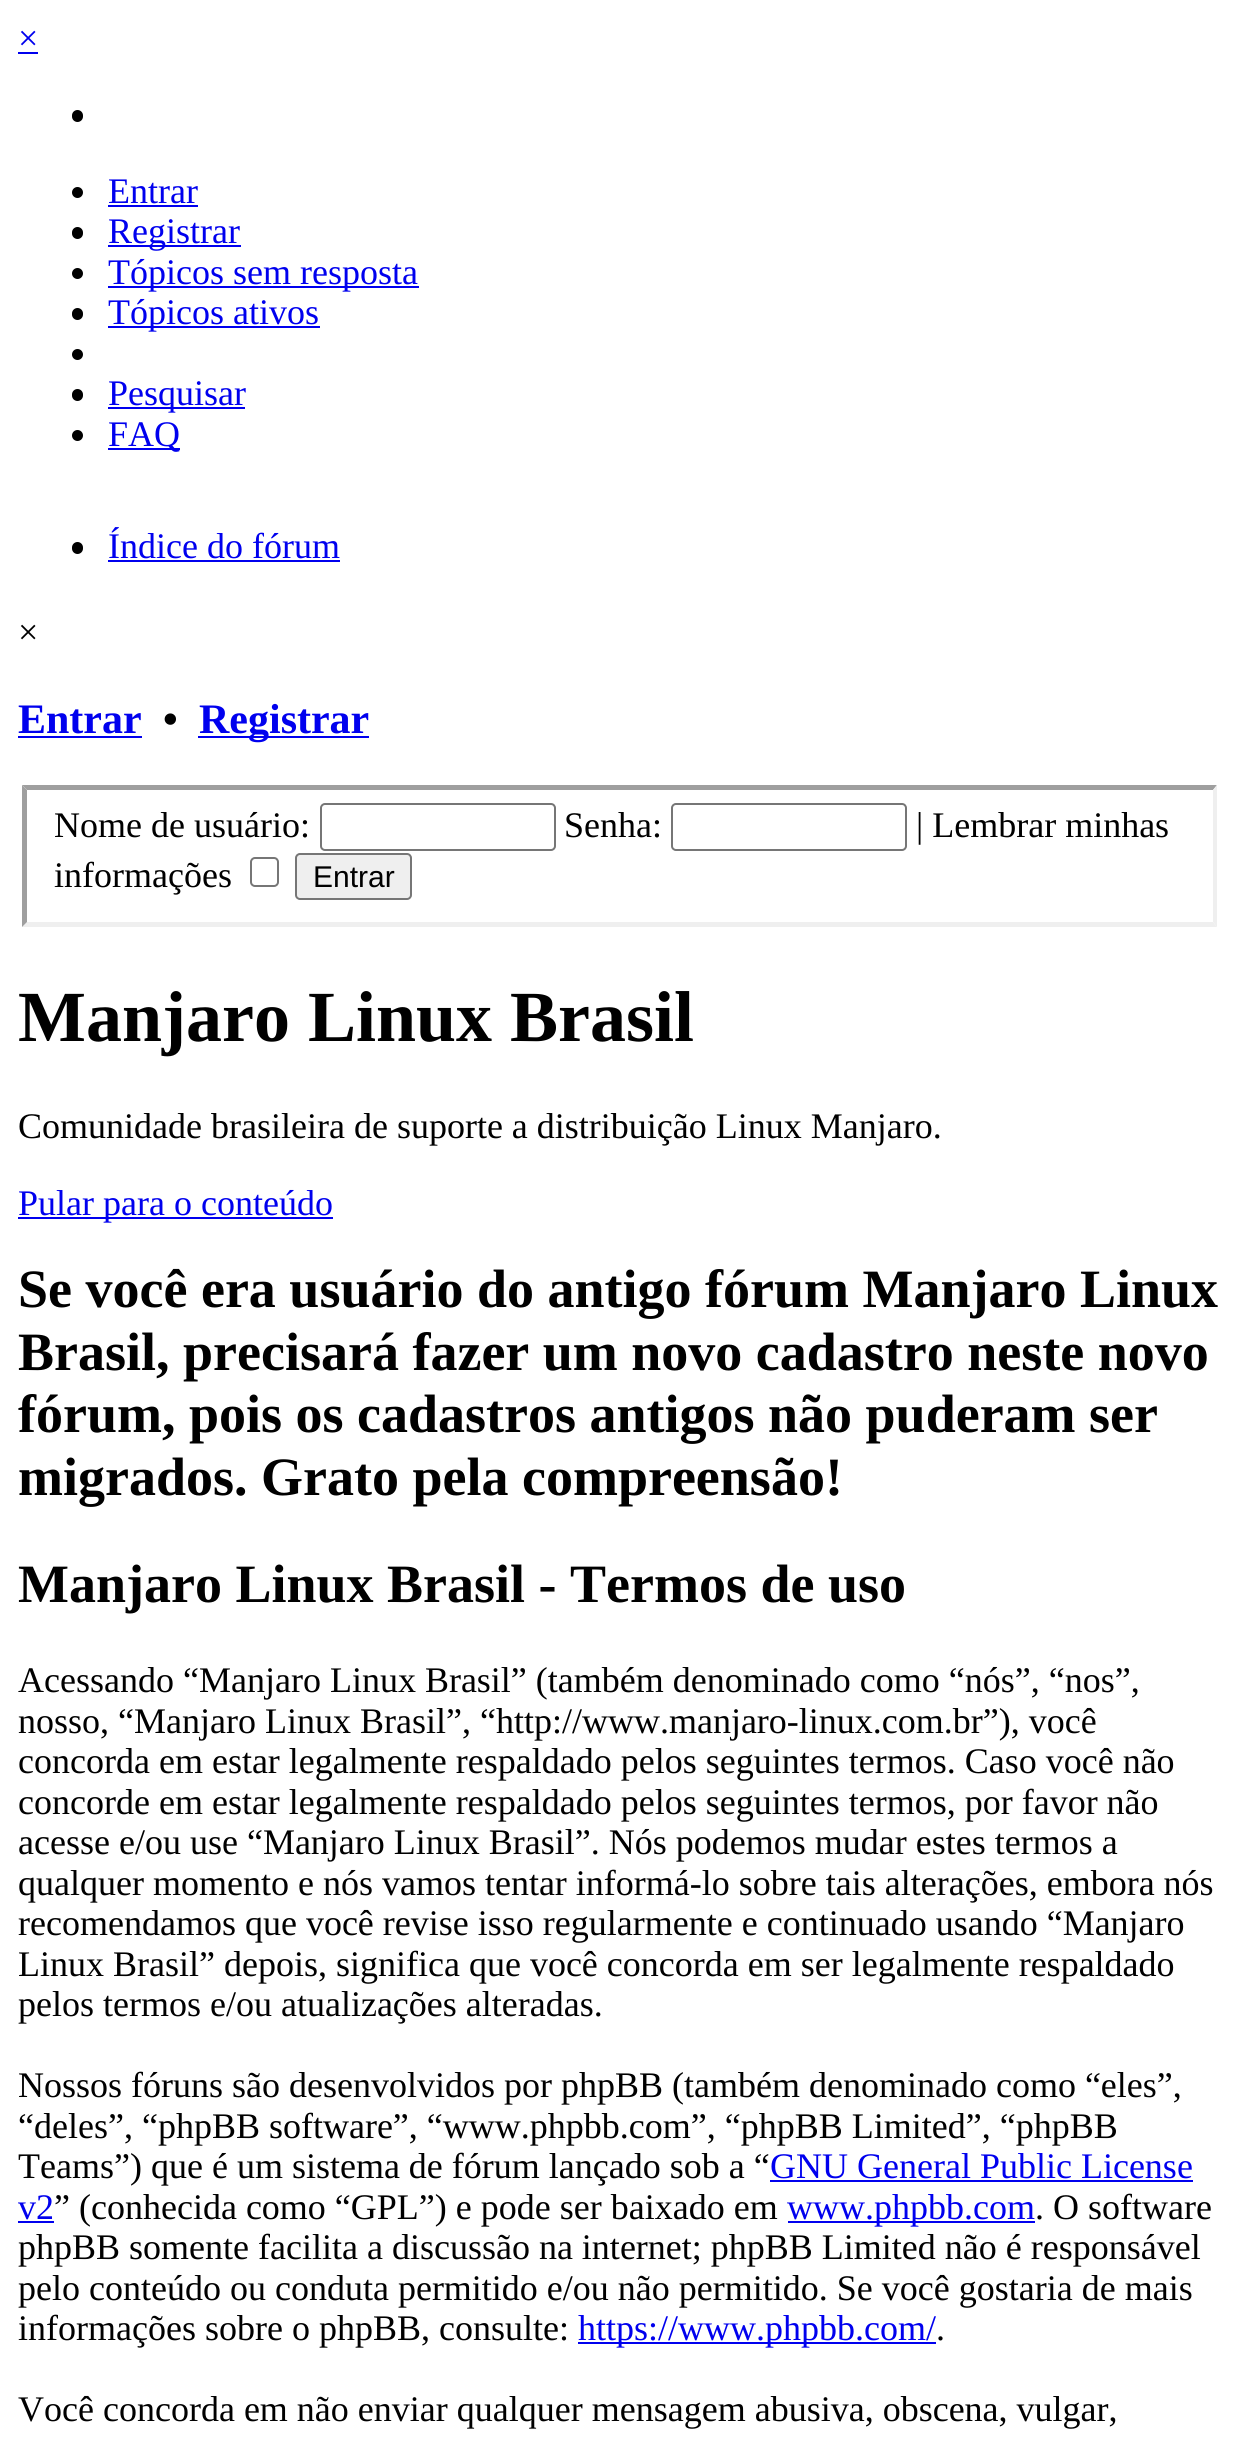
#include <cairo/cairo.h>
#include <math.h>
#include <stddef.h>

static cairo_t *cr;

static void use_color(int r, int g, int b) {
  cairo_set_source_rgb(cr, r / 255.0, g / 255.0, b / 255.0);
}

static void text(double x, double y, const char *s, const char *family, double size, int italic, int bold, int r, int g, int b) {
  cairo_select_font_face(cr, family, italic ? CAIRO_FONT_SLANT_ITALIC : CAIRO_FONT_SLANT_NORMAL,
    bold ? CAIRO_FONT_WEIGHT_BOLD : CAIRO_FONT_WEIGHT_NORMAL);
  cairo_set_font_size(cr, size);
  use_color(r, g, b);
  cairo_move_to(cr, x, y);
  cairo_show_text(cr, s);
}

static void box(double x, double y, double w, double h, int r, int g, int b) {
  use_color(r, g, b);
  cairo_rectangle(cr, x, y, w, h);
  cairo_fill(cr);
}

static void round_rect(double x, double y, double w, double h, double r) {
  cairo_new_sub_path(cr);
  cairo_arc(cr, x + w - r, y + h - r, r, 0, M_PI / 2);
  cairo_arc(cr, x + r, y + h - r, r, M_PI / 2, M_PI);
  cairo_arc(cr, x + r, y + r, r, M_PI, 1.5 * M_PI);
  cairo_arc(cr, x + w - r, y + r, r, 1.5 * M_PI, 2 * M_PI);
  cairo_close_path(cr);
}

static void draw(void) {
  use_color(255, 255, 255);
  cairo_paint(cr);
  box(18, 52, 20, 2, 0, 0, 238);
  use_color(0, 0, 0);
  round_rect(72, 110, 11, 12, 5.5);
  cairo_fill(cr);
  cairo_arc(cr, 77.5, 192.5, 5.5, 0, 2 * M_PI);
  cairo_fill(cr);
  box(108, 205, 90, 2, 0, 0, 238);
  use_color(0, 0, 0);
  round_rect(72, 227, 11, 12, 5.5);
  cairo_fill(cr);
  box(108, 245, 133, 2, 0, 0, 238);
  use_color(0, 0, 0);
  cairo_arc(cr, 77.5, 273.5, 5.5, 0, 2 * M_PI);
  cairo_fill(cr);
  box(108, 286, 311, 2, 0, 0, 238);
  use_color(0, 0, 0);
  round_rect(72, 308, 11, 12, 5.5);
  cairo_fill(cr);
  box(108, 326, 212, 2, 0, 0, 238);
  use_color(0, 0, 0);
  cairo_arc(cr, 77.5, 354.5, 5.5, 0, 2 * M_PI);
  cairo_fill(cr);
  round_rect(72, 389, 11, 12, 5.5);
  cairo_fill(cr);
  box(108, 407, 137, 2, 0, 0, 238);
  use_color(0, 0, 0);
  cairo_arc(cr, 77.5, 435.5, 5.5, 0, 2 * M_PI);
  cairo_fill(cr);
  box(108, 448, 72, 2, 0, 0, 238);
  use_color(0, 0, 0);
  round_rect(72, 542, 11, 12, 5.5);
  cairo_fill(cr);
  box(108, 560, 232, 2, 0, 0, 238);
  box(18, 736, 124, 2, 0, 0, 238);
  box(198, 736, 171, 2, 0, 0, 238);
  use_color(159, 159, 159);
  cairo_new_path(cr);
  cairo_move_to(cr, 22, 785);
  cairo_line_to(cr, 1217, 785);
  cairo_line_to(cr, 1213, 790);
  cairo_line_to(cr, 27, 790);
  cairo_close_path(cr);
  cairo_fill(cr);
  use_color(239, 239, 239);
  cairo_new_path(cr);
  cairo_move_to(cr, 1217, 785);
  cairo_line_to(cr, 1217, 927);
  cairo_line_to(cr, 1213, 922);
  cairo_line_to(cr, 1213, 790);
  cairo_close_path(cr);
  cairo_fill(cr);
  cairo_new_path(cr);
  cairo_move_to(cr, 1217, 927);
  cairo_line_to(cr, 22, 927);
  cairo_line_to(cr, 27, 922);
  cairo_line_to(cr, 1213, 922);
  cairo_close_path(cr);
  cairo_fill(cr);
  use_color(159, 159, 159);
  cairo_new_path(cr);
  cairo_move_to(cr, 22, 927);
  cairo_line_to(cr, 22, 785);
  cairo_line_to(cr, 27, 790);
  cairo_line_to(cr, 27, 922);
  cairo_close_path(cr);
  cairo_fill(cr);
  round_rect(321, 804, 234, 46, 4);
  use_color(118, 118, 118);
  cairo_stroke(cr);
  round_rect(672, 804, 234, 46, 4);
  cairo_stroke(cr);
  round_rect(251, 858, 27, 28, 4);
  cairo_stroke(cr);
  use_color(239, 239, 239);
  round_rect(296, 854, 115, 45, 4);
  cairo_fill_preserve(cr);
  use_color(118, 118, 118);
  cairo_stroke(cr);
  box(18, 1217, 315, 2, 0, 0, 238);
  box(770, 2180, 423, 2, 0, 0, 238);
  box(18, 2221, 36, 2, 0, 0, 238);
  box(788, 2221, 247, 2, 0, 0, 238);
  box(578, 2342, 358, 2, 0, 0, 238);
  text(18, 50, "×", "Liberation Serif", 36, 0, 0, 0, 0, 238);
  text(108, 203, "Entrar", "Liberation Serif", 36, 0, 0, 0, 0, 238);
  text(108, 243, "Registrar", "Liberation Serif", 36, 0, 0, 0, 0, 238);
  text(108, 284, "Tópicos sem resposta", "Liberation Serif", 36, 0, 0, 0, 0, 238);
  text(108, 324, "Tópicos ativos", "Liberation Serif", 36, 0, 0, 0, 0, 238);
  text(108, 405, "Pesquisar", "Liberation Serif", 36, 0, 0, 0, 0, 238);
  text(108, 446, "FAQ", "Liberation Serif", 36, 0, 0, 0, 0, 238);
  text(108, 558, "Índice do fórum", "Liberation Serif", 36, 0, 0, 0, 0, 238);
  text(18, 644, "×", "Liberation Serif", 36, 0, 0, 0, 0, 0);
  text(18, 733, "Entrar", "Liberation Serif", 42, 0, 1, 0, 0, 238);
  text(163, 733, "•", "Liberation Serif", 42, 0, 1, 0, 0, 0);
  text(199, 733, "Registrar", "Liberation Serif", 42, 0, 1, 0, 0, 238);
  text(54, 837, "Nome de usuário:", "Liberation Serif", 36, 0, 0, 0, 0, 0);
  text(564, 837, "Senha:", "Liberation Serif", 36, 0, 0, 0, 0, 0);
  text(916, 837, "| Lembrar minhas", "Liberation Serif", 36, 0, 0, 0, 0, 0);
  text(54, 887, "informações", "Liberation Serif", 36, 0, 0, 0, 0, 0);
  text(313, 887, "Entrar", "Liberation Sans", 30, 0, 0, 0, 0, 0);
  text(18, 1041, "Manjaro Linux Brasil", "Liberation Serif", 72, 0, 1, 0, 0, 0);
  text(18, 1138, "Comunidade brasileira de suporte a distribuição Linux Manjaro.", "Liberation Serif", 36, 0, 0, 0, 0, 0);
  text(18, 1215, "Pular para o conteúdo", "Liberation Serif", 36, 0, 0, 0, 0, 238);
  text(18, 1307, "Se você era usuário do antigo fórum Manjaro Linux", "Liberation Serif", 54, 0, 1, 0, 0, 0);
  text(18, 1370, "Brasil, precisará fazer um novo cadastro neste novo", "Liberation Serif", 54, 0, 1, 0, 0, 0);
  text(18, 1432, "fórum, pois os cadastros antigos não puderam ser", "Liberation Serif", 54, 0, 1, 0, 0, 0);
  text(18, 1495, "migrados. Grato pela compreensão!", "Liberation Serif", 54, 0, 1, 0, 0, 0);
  text(18, 1602, "Manjaro Linux Brasil - Termos de uso", "Liberation Serif", 54, 0, 1, 0, 0, 0);
  text(18, 1692, "Acessando “Manjaro Linux Brasil” (também denominado como “nós”, “nos”,", "Liberation Serif", 36, 0, 0, 0, 0, 0);
  text(18, 1733, "nosso, “Manjaro Linux Brasil”, “http://www.manjaro-linux.com.br”), você", "Liberation Serif", 36, 0, 0, 0, 0, 0);
  text(18, 1773, "concorda em estar legalmente respaldado pelos seguintes termos. Caso você não", "Liberation Serif", 36, 0, 0, 0, 0, 0);
  text(18, 1814, "concorde em estar legalmente respaldado pelos seguintes termos, por favor não", "Liberation Serif", 36, 0, 0, 0, 0, 0);
  text(18, 1854, "acesse e/ou use “Manjaro Linux Brasil”. Nós podemos mudar estes termos a", "Liberation Serif", 36, 0, 0, 0, 0, 0);
  text(18, 1895, "qualquer momento e nós vamos tentar informá-lo sobre tais alterações, embora nós", "Liberation Serif", 36, 0, 0, 0, 0, 0);
  text(18, 1935, "recomendamos que você revise isso regularmente e continuado usando “Manjaro", "Liberation Serif", 36, 0, 0, 0, 0, 0);
  text(18, 1976, "Linux Brasil” depois, significa que você concorda em ser legalmente respaldado", "Liberation Serif", 36, 0, 0, 0, 0, 0);
  text(18, 2016, "pelos termos e/ou atualizações alteradas.", "Liberation Serif", 36, 0, 0, 0, 0, 0);
  text(18, 2097, "Nossos fóruns são desenvolvidos por phpBB (também denominado como “eles”,", "Liberation Serif", 36, 0, 0, 0, 0, 0);
  text(18, 2138, "“deles”, “phpBB software”, “www.phpbb.com”, “phpBB Limited”, “phpBB", "Liberation Serif", 36, 0, 0, 0, 0, 0);
  text(18, 2178, "Teams”) que é um sistema de fórum lançado sob a “", "Liberation Serif", 36, 0, 0, 0, 0, 0);
  text(770, 2178, "GNU General Public License", "Liberation Serif", 36, 0, 0, 0, 0, 238);
  text(18, 2219, "v2", "Liberation Serif", 36, 0, 0, 0, 0, 238);
  text(54, 2219, "” (conhecida como “GPL”) e pode ser baixado em", "Liberation Serif", 36, 0, 0, 0, 0, 0);
  text(787, 2219, "www.phpbb.com", "Liberation Serif", 36, 0, 0, 0, 0, 238);
  text(1035, 2219, ". O software", "Liberation Serif", 36, 0, 0, 0, 0, 0);
  text(18, 2259, "phpBB somente facilita a discussão na internet; phpBB Limited não é responsável", "Liberation Serif", 36, 0, 0, 0, 0, 0);
  text(18, 2300, "pelo conteúdo ou conduta permitido e/ou não permitido. Se você gostaria de mais", "Liberation Serif", 36, 0, 0, 0, 0, 0);
  text(18, 2340, "informações sobre o phpBB, consulte:", "Liberation Serif", 36, 0, 0, 0, 0, 0);
  text(578, 2340, "https://www.phpbb.com/", "Liberation Serif", 36, 0, 0, 0, 0, 238);
  text(936, 2340, ".", "Liberation Serif", 36, 0, 0, 0, 0, 0);
  text(18, 2421, "Você concorda em não enviar qualquer mensagem abusiva, obscena, vulgar,", "Liberation Serif", 36, 0, 0, 0, 0, 0);
}

int main(void) {
  cairo_surface_t *surface = cairo_image_surface_create(CAIRO_FORMAT_RGB24, 1238, 2438);
  cr = cairo_create(surface);
  cairo_font_options_t *options = cairo_font_options_create();
  cairo_font_options_set_hint_metrics(options, CAIRO_HINT_METRICS_OFF);
  cairo_font_options_set_hint_style(options, CAIRO_HINT_STYLE_NONE);
  cairo_set_font_options(cr, options);
  cairo_set_miter_limit(cr, 4);
  draw();
  cairo_surface_write_to_png(surface, "out.png");
  cairo_font_options_destroy(options);
  cairo_destroy(cr);
  cairo_surface_destroy(surface);
  return 0;
}
